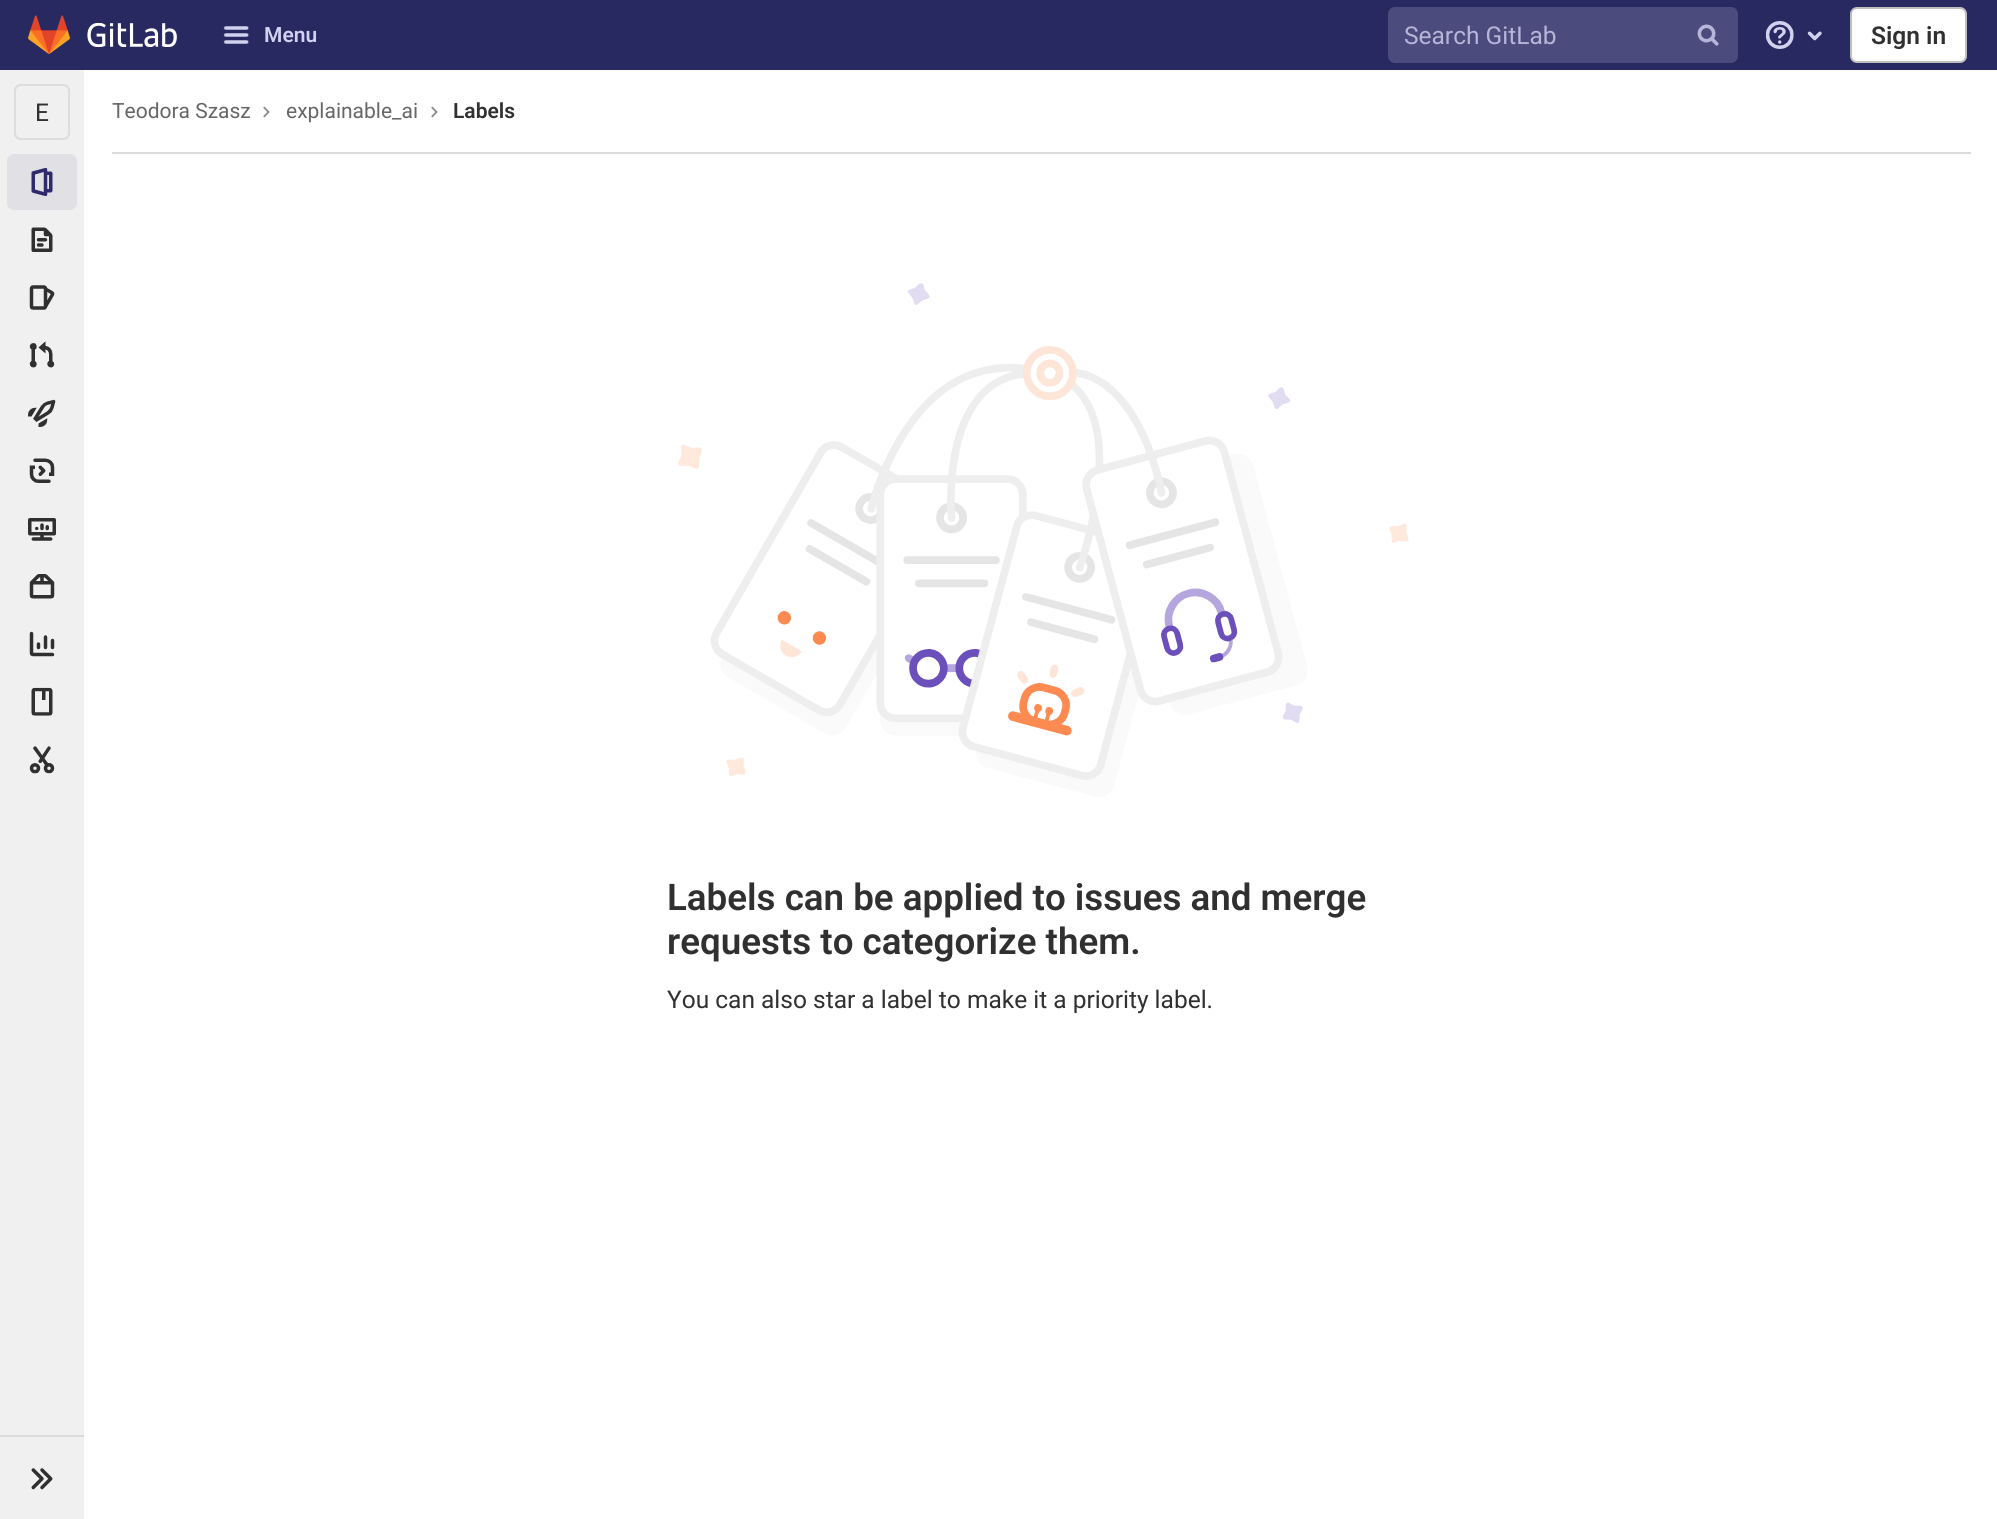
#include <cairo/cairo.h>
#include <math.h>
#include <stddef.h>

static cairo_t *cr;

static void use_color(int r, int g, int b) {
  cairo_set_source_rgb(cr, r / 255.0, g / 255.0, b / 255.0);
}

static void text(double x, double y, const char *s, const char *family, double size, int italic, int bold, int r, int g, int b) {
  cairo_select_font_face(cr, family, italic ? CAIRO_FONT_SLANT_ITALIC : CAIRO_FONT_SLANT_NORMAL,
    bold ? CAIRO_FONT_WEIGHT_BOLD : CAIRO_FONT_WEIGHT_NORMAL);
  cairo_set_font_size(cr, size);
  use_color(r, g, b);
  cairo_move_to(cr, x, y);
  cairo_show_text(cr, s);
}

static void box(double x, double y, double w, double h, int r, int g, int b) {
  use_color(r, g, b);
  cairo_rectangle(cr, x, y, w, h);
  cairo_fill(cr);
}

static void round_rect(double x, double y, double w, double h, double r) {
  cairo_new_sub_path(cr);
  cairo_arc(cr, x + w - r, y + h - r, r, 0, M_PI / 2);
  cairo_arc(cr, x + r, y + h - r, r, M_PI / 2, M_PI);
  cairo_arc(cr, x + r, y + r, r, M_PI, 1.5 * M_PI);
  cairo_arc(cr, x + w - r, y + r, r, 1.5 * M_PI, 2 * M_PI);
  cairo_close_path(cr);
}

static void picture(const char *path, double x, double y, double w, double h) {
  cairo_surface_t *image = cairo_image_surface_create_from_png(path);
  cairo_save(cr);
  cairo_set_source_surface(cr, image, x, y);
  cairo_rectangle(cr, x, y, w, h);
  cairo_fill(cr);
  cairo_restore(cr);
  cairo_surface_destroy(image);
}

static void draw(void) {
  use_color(255, 255, 255);
  cairo_paint(cr);
  box(0, 0, 1997, 70, 41, 41, 97);
  picture("img_01.png", 28, 15, 42, 39);
  picture("img_02.png", 87, 23, 90, 24);
  picture("img_03.png", 223, 26, 26, 18);
  use_color(75, 75, 126);
  round_rect(1388, 7, 350, 56, 7);
  cairo_fill(cr);
  picture("img_04.png", 1697, 24, 22, 22);
  picture("img_05.png", 1765, 21, 29, 28);
  picture("img_06.png", 1807, 31, 15, 10);
  use_color(255, 255, 255);
  round_rect(1851, 8, 115, 54, 6);
  cairo_fill_preserve(cr);
  use_color(191, 191, 191);
  cairo_stroke(cr);
  box(0, 70, 84, 1449, 240, 240, 240);
  round_rect(15, 85, 54, 54, 6);
  cairo_set_source_rgba(cr, 0, 0, 0, 0.08);
  cairo_stroke(cr);
  use_color(240, 240, 240);
  round_rect(15, 85, 54, 54, 6);
  cairo_fill_preserve(cr);
  use_color(221, 221, 221);
  cairo_stroke(cr);
  use_color(224, 224, 229);
  round_rect(7, 154, 70, 56, 7);
  cairo_fill(cr);
  picture("img_07.png", 31, 168, 22, 28);
  picture("img_08.png", 31, 227, 22, 25);
  picture("img_09.png", 29, 285, 26, 25);
  picture("img_10.png", 29, 341, 26, 27);
  picture("img_11.png", 28, 399, 28, 28);
  picture("img_12.png", 29, 458, 26, 25);
  picture("img_13.png", 28, 518, 28, 23);
  picture("img_14.png", 29, 574, 26, 25);
  picture("img_15.png", 29, 631, 26, 26);
  picture("img_16.png", 31, 687, 22, 29);
  picture("img_17.png", 29, 746, 26, 28);
  box(0, 1435, 84, 2, 219, 219, 219);
  picture("img_18.png", 31, 1468, 22, 22);
  box(112, 152, 1859, 2, 219, 219, 219);
  picture("img_19.png", 263, 106, 7, 12);
  picture("img_19.png", 431, 106, 7, 12);
  picture("img_20.png", 678, 283, 731, 514);
  text(264, 42, "Menu", "Roboto SemiBold", 21, 0, 0, 209, 209, 240);
  text(1404, 44, "Search GitLab", "Roboto", 24.5, 0, 0, 182, 182, 217);
  text(1871, 44, "Sign in", "Roboto SemiBold", 24.5, 0, 0, 48, 48, 48);
  text(35, 121, "E", "Roboto", 24.5, 0, 0, 48, 48, 48);
  text(112, 118, "Teodora Szasz", "Roboto", 21, 0, 0, 102, 102, 102);
  text(286, 118, "explainable_ai", "Roboto", 21, 0, 0, 102, 102, 102);
  text(453, 118, "Labels", "Roboto SemiBold", 21, 0, 0, 48, 48, 48);
  text(667, 910, "Labels can be applied to issues and merge", "Roboto SemiBold", 36.75, 0, 0, 48, 48, 48);
  text(667, 954, "requests to categorize them.", "Roboto SemiBold", 36.75, 0, 0, 48, 48, 48);
  text(667, 1008, "You can also star a label to make it a priority label.", "Roboto", 24.5, 0, 0, 48, 48, 48);
}

int main(void) {
  cairo_surface_t *surface = cairo_image_surface_create(CAIRO_FORMAT_RGB24, 1997, 1519);
  cr = cairo_create(surface);
  cairo_font_options_t *options = cairo_font_options_create();
  cairo_font_options_set_hint_metrics(options, CAIRO_HINT_METRICS_OFF);
  cairo_font_options_set_hint_style(options, CAIRO_HINT_STYLE_NONE);
  cairo_set_font_options(cr, options);
  cairo_set_miter_limit(cr, 4);
  draw();
  cairo_surface_write_to_png(surface, "out.png");
  cairo_font_options_destroy(options);
  cairo_destroy(cr);
  cairo_surface_destroy(surface);
  return 0;
}
